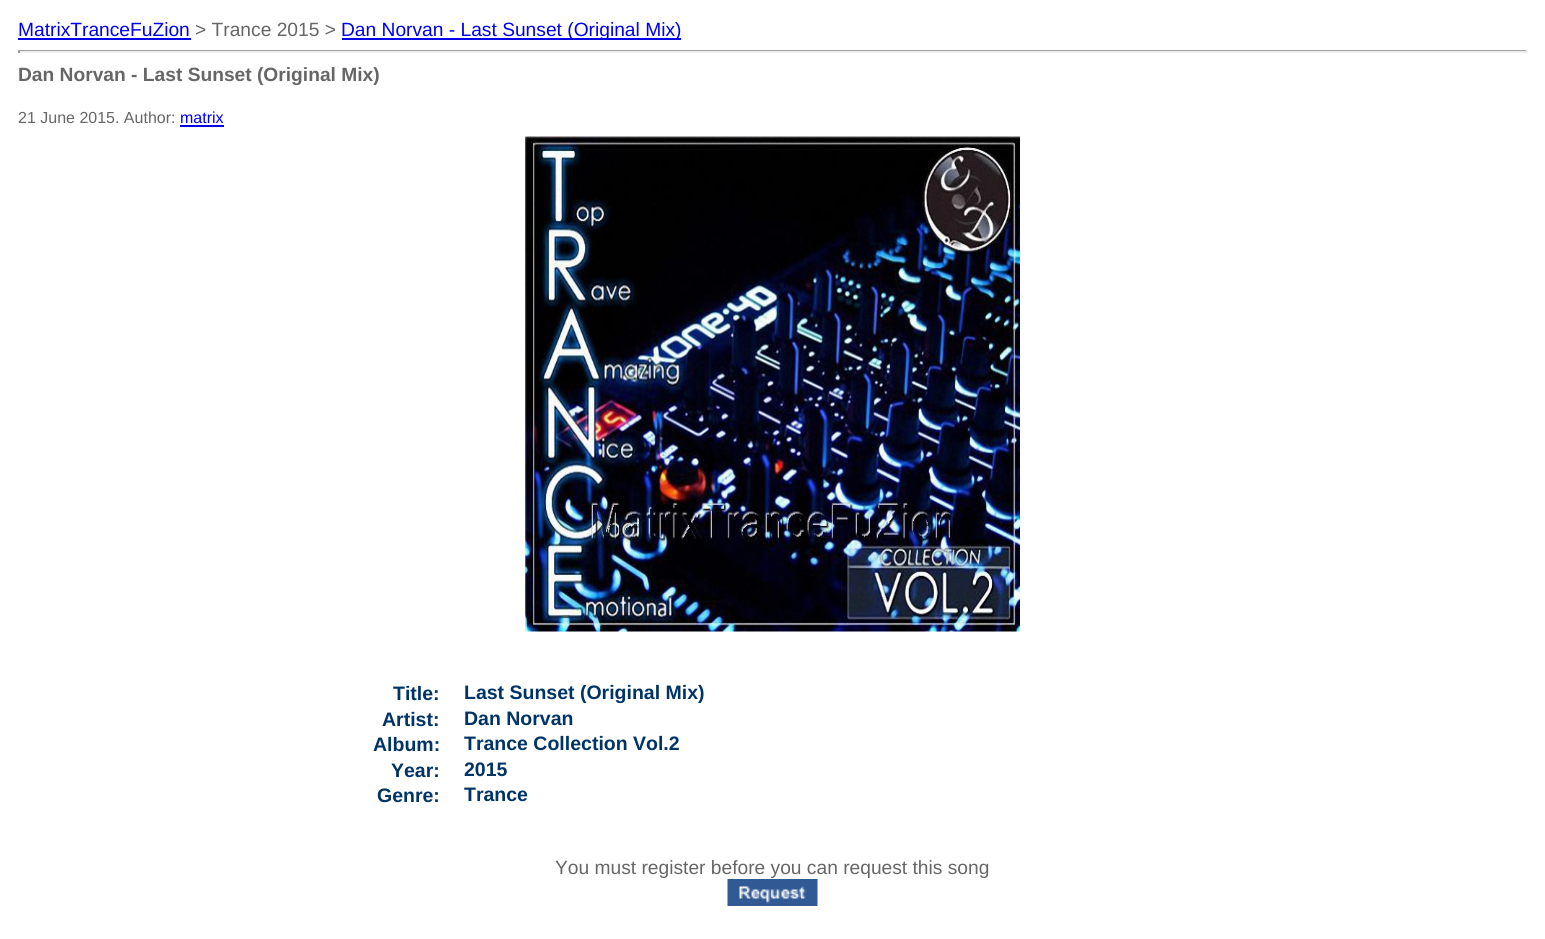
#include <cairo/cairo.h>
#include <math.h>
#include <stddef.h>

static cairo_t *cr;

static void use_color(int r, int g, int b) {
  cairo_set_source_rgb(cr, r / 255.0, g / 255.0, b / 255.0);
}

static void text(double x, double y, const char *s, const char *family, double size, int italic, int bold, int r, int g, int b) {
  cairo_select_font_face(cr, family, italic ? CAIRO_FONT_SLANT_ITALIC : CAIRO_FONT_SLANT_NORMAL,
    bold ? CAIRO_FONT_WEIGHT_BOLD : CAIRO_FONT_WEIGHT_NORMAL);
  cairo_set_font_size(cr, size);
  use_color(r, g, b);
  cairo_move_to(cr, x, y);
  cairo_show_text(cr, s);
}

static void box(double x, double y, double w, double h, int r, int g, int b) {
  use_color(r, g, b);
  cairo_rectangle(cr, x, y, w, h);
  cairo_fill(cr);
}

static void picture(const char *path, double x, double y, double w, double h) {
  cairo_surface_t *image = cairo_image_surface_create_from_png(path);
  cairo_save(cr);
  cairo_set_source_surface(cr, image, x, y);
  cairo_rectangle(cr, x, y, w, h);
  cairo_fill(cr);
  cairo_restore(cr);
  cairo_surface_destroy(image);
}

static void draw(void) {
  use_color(255, 255, 255);
  cairo_paint(cr);
  box(18, 38, 173, 2, 0, 0, 238);
  box(342, 38, 339, 2, 0, 0, 238);
  box(18, 50, 1509, 1, 159, 159, 159);
  box(1526, 50, 2, 3, 238, 238, 238);
  box(18, 51, 1509, 2, 238, 238, 238);
  box(18, 50, 2, 3, 159, 159, 159);
  box(180, 125, 44, 2, 0, 0, 238);
  picture("img_01.png", 525, 136, 495, 496);
  picture("img_02.png", 727, 879, 91, 27);
  text(18, 36, "MatrixTranceFuZion", "Liberation Sans", 19.2, 0, 0, 0, 0, 238);
  text(195, 36, "> Trance 2015 >", "Liberation Sans", 19.2, 0, 0, 102, 102, 102);
  text(341, 36, "Dan Norvan - Last Sunset (Original Mix)", "Liberation Sans", 19.2, 0, 0, 0, 0, 238);
  text(18, 81, "Dan Norvan - Last Sunset (Original Mix)", "Liberation Sans", 19.2, 0, 1, 102, 102, 102);
  text(18, 123, "21 June 2015. Author:", "Liberation Sans", 16, 0, 0, 102, 102, 102);
  text(180, 123, "matrix", "Liberation Sans", 16, 0, 0, 0, 0, 238);
  text(393, 700, "Title:", "Liberation Sans", 19.5, 0, 1, 0, 51, 102);
  text(464, 699, "Last Sunset (Original Mix)", "Liberation Sans", 19.5, 0, 1, 0, 51, 102);
  text(382, 726, "Artist:", "Liberation Sans", 19.5, 0, 1, 0, 51, 102);
  text(464, 725, "Dan Norvan", "Liberation Sans", 19.5, 0, 1, 0, 51, 102);
  text(373, 751, "Album:", "Liberation Sans", 19.5, 0, 1, 0, 51, 102);
  text(464, 750, "Trance Collection Vol.2", "Liberation Sans", 19.5, 0, 1, 0, 51, 102);
  text(391, 777, "Year:", "Liberation Sans", 19.5, 0, 1, 0, 51, 102);
  text(464, 776, "2015", "Liberation Sans", 19.5, 0, 1, 0, 51, 102);
  text(377, 802, "Genre:", "Liberation Sans", 19.5, 0, 1, 0, 51, 102);
  text(464, 801, "Trance", "Liberation Sans", 19.5, 0, 1, 0, 51, 102);
  text(555, 874, "You must register before you can request this song", "Liberation Sans", 19.2, 0, 0, 102, 102, 102);
}

int main(void) {
  cairo_surface_t *surface = cairo_image_surface_create(CAIRO_FORMAT_RGB24, 1545, 939);
  cr = cairo_create(surface);
  cairo_font_options_t *options = cairo_font_options_create();
  cairo_font_options_set_hint_metrics(options, CAIRO_HINT_METRICS_OFF);
  cairo_font_options_set_hint_style(options, CAIRO_HINT_STYLE_NONE);
  cairo_set_font_options(cr, options);
  cairo_set_miter_limit(cr, 4);
  draw();
  cairo_surface_write_to_png(surface, "out.png");
  cairo_font_options_destroy(options);
  cairo_destroy(cr);
  cairo_surface_destroy(surface);
  return 0;
}
